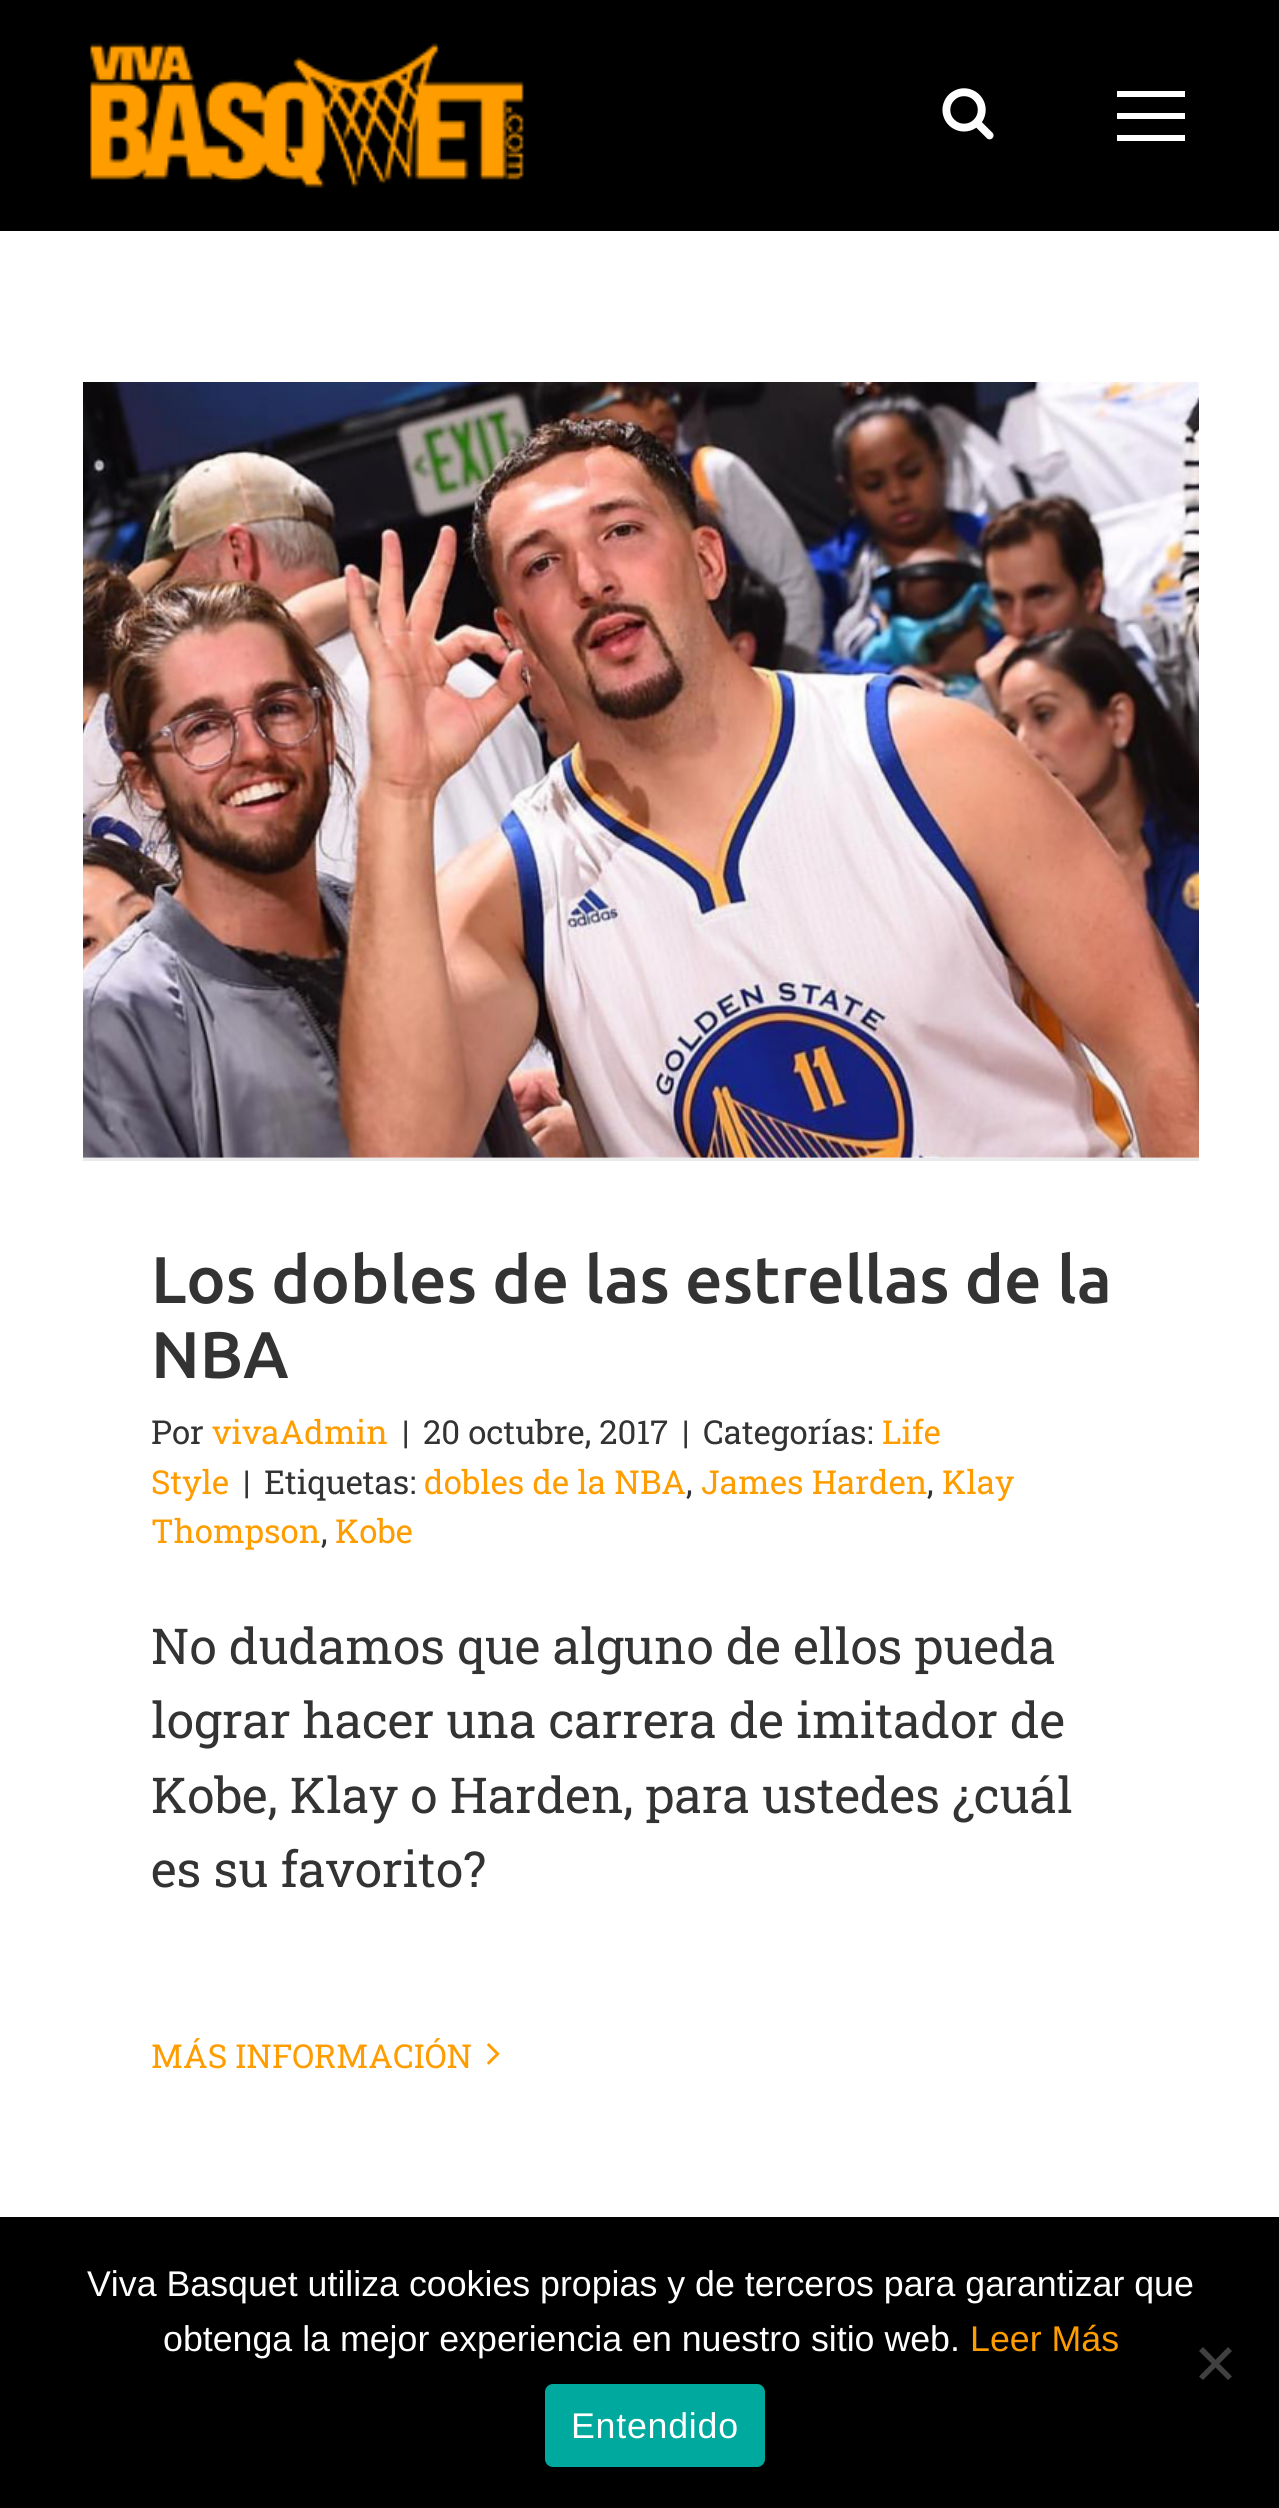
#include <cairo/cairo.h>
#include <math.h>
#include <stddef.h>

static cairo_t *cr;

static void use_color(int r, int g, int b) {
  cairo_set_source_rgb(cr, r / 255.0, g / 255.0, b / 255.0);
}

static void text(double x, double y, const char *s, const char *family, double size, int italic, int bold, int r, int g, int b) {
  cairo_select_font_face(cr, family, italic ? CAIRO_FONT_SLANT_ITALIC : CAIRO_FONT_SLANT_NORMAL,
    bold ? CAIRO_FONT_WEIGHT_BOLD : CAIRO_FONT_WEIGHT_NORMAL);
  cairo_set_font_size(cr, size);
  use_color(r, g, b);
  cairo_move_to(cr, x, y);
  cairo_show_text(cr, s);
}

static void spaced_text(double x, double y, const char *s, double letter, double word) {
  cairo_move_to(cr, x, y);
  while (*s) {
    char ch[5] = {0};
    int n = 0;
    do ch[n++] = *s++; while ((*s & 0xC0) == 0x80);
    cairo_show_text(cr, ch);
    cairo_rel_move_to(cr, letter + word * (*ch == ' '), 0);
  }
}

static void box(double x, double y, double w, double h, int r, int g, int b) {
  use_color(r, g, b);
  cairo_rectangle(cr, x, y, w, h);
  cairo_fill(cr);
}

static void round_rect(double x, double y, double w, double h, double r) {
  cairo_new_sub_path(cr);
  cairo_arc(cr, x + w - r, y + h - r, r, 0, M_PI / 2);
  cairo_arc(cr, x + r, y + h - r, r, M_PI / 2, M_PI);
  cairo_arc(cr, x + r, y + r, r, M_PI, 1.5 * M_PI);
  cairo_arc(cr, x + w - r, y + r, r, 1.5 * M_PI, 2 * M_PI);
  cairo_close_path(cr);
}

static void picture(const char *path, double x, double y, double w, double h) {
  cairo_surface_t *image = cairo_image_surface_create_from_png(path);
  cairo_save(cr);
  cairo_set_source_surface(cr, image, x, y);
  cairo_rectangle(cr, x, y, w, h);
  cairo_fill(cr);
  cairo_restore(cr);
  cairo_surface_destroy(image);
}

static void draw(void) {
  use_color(255, 255, 255);
  cairo_paint(cr);
  box(0, 0, 1279, 231, 0, 0, 0);
  picture("img_01.png", 90, 43, 434, 145);
  picture("img_02.png", 942, 88, 52, 52);
  box(1117, 91, 68, 6, 255, 255, 255);
  box(1117, 113, 68, 6, 255, 255, 255);
  box(1117, 135, 68, 6, 255, 255, 255);
  box(83, 1158, 1116, 3, 235, 234, 234);
  picture("img_03.png", 83, 382, 1116, 776);
  picture("img_04.png", 487, 2043, 13, 22);
  box(0, 2217, 1279, 291, 0, 0, 0);
  use_color(64, 64, 64);
  cairo_new_path(cr);
  cairo_move_to(cr, 1228, 2347);
  cairo_line_to(cr, 1232, 2351);
  cairo_line_to(cr, 1203, 2380);
  cairo_line_to(cr, 1199, 2376.5);
  cairo_close_path(cr);
  cairo_fill(cr);
  cairo_new_path(cr);
  cairo_move_to(cr, 1199, 2351);
  cairo_line_to(cr, 1203, 2347);
  cairo_line_to(cr, 1232, 2376.5);
  cairo_line_to(cr, 1228, 2380);
  cairo_close_path(cr);
  cairo_fill(cr);
  use_color(0, 169, 157);
  round_rect(545, 2384, 220, 83, 8);
  cairo_fill(cr);
  text(151, 1303, "Los dobles de las estrellas de la", "Ubuntu Medium", 66, 0, 0, 51, 51, 51);
  text(151, 1378, "NBA", "Ubuntu Medium", 66, 0, 0, 51, 51, 51);
  text(151, 1444, "Por", "Roboto Slab", 33, 0, 0, 51, 51, 51);
  text(212, 1444, "vivaAdmin", "Roboto Slab", 33, 0, 0, 255, 157, 0);
  text(402, 1444, "|", "Roboto Slab", 33, 0, 0, 51, 51, 51);
  text(423, 1444, "20 octubre, 2017", "Roboto Slab", 33, 0, 0, 51, 51, 51);
  text(682, 1444, "|", "Roboto Slab", 33, 0, 0, 51, 51, 51);
  text(703, 1444, "Categorías:", "Roboto Slab", 33, 0, 0, 51, 51, 51);
  text(882, 1444, "Life", "Roboto Slab", 33, 0, 0, 255, 157, 0);
  text(151, 1494, "Style", "Roboto Slab", 33, 0, 0, 255, 157, 0);
  text(243, 1494, "|", "Roboto Slab", 33, 0, 0, 51, 51, 51);
  text(264, 1494, "Etiquetas:", "Roboto Slab", 33, 0, 0, 51, 51, 51);
  text(424, 1494, "dobles de la NBA", "Roboto Slab", 33, 0, 0, 255, 157, 0);
  text(686, 1494, ",", "Roboto Slab", 33, 0, 0, 51, 51, 51);
  text(701, 1494, "James Harden", "Roboto Slab", 33, 0, 0, 255, 157, 0);
  text(927, 1494, ",", "Roboto Slab", 33, 0, 0, 51, 51, 51);
  text(942, 1494, "Klay", "Roboto Slab", 33, 0, 0, 255, 157, 0);
  text(151, 1543, "Thompson", "Roboto Slab", 33, 0, 0, 255, 157, 0);
  text(321, 1543, ",", "Roboto Slab", 33, 0, 0, 51, 51, 51);
  text(335, 1543, "Kobe", "Roboto Slab", 33, 0, 0, 255, 157, 0);
  text(151, 1664, "No dudamos que alguno de ellos pueda", "Roboto Slab", 49.5, 0, 0, 51, 51, 51);
  text(151, 1738, "lograr hacer una carrera de imitador de", "Roboto Slab", 49.5, 0, 0, 51, 51, 51);
  text(151, 1813, "Kobe, Klay o Harden, para ustedes ¿cuál", "Roboto Slab", 49.5, 0, 0, 51, 51, 51);
  text(151, 1887, "es su favorito?", "Roboto Slab", 49.5, 0, 0, 51, 51, 51);
  text(151, 2068, "MÁS INFORMACIÓN", "Roboto Slab", 33, 0, 0, 255, 157, 0);
  text(87, 2296, "Viva Basquet utiliza cookies propias y de terceros para garantizar que", "Liberation Sans", 35.75, 0, 0, 255, 255, 255);
  text(163, 2351, "obtenga la mejor experiencia en nuestro sitio web.", "Liberation Sans", 35.75, 0, 0, 255, 255, 255);
  text(970, 2351, "Leer Más", "Liberation Sans", 35.75, 0, 0, 255, 157, 0);
  use_color(255, 255, 255);
  spaced_text(571, 2438, "Entendido", 0.75, 0);
}

int main(void) {
  cairo_surface_t *surface = cairo_image_surface_create(CAIRO_FORMAT_RGB24, 1279, 2508);
  cr = cairo_create(surface);
  cairo_font_options_t *options = cairo_font_options_create();
  cairo_font_options_set_hint_metrics(options, CAIRO_HINT_METRICS_OFF);
  cairo_font_options_set_hint_style(options, CAIRO_HINT_STYLE_NONE);
  cairo_set_font_options(cr, options);
  cairo_set_miter_limit(cr, 4);
  draw();
  cairo_surface_write_to_png(surface, "out.png");
  cairo_font_options_destroy(options);
  cairo_destroy(cr);
  cairo_surface_destroy(surface);
  return 0;
}
